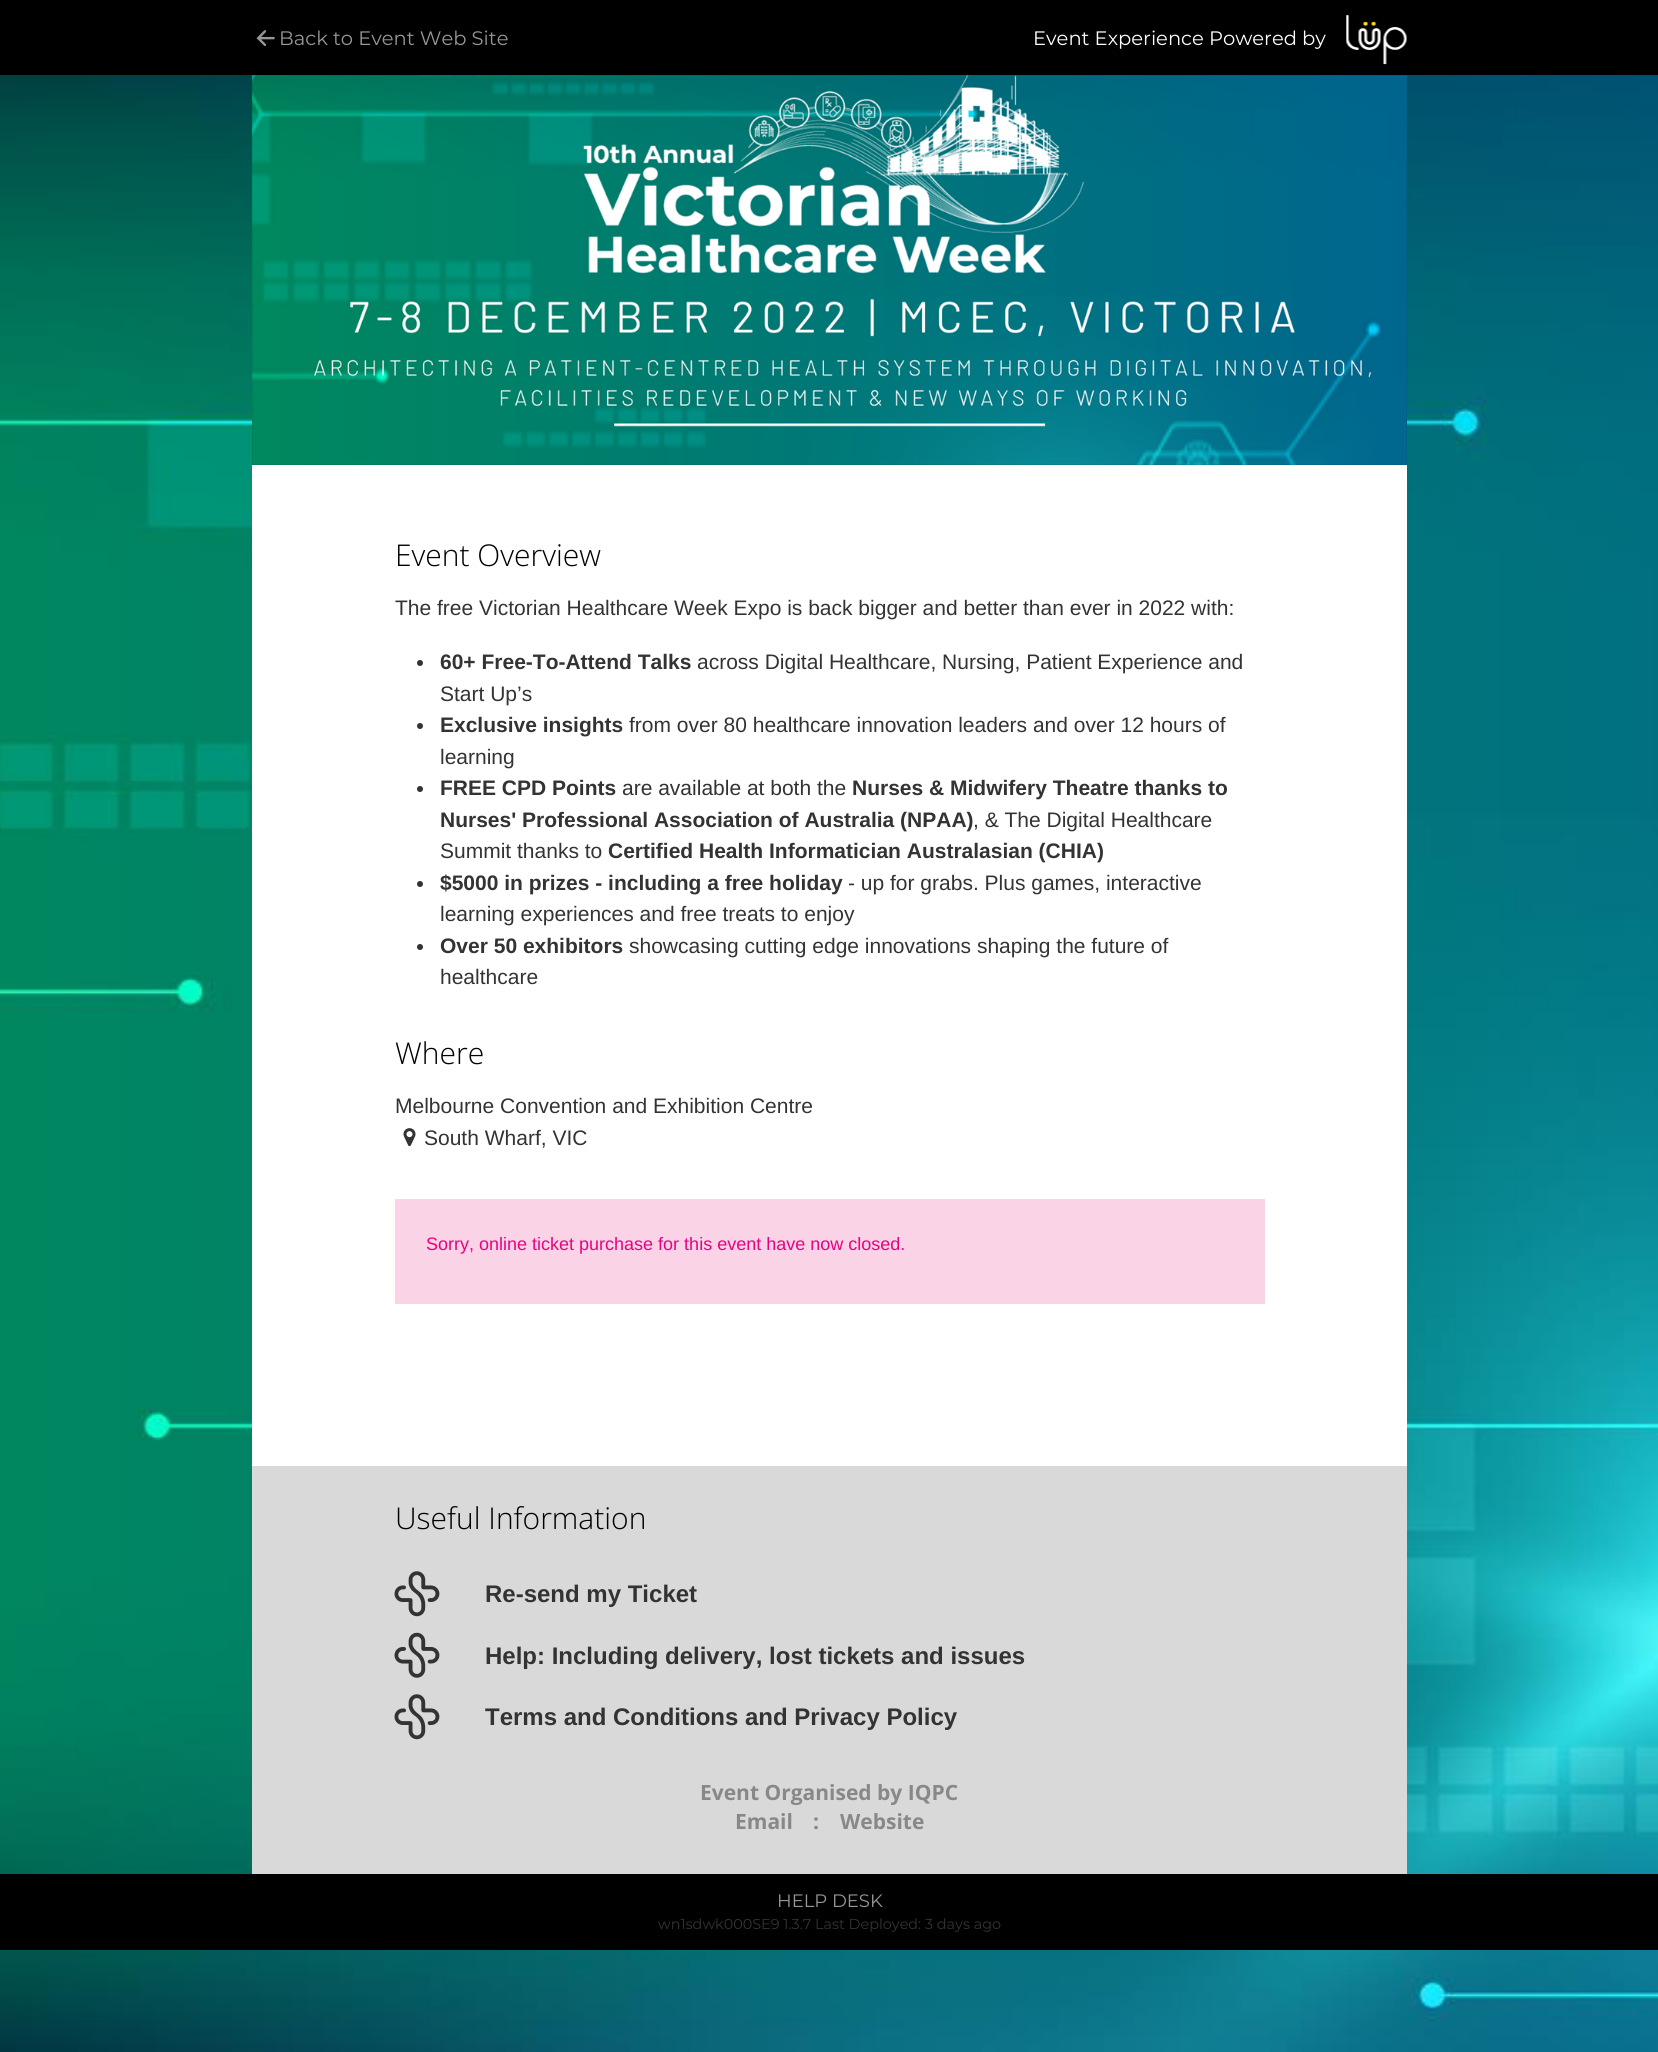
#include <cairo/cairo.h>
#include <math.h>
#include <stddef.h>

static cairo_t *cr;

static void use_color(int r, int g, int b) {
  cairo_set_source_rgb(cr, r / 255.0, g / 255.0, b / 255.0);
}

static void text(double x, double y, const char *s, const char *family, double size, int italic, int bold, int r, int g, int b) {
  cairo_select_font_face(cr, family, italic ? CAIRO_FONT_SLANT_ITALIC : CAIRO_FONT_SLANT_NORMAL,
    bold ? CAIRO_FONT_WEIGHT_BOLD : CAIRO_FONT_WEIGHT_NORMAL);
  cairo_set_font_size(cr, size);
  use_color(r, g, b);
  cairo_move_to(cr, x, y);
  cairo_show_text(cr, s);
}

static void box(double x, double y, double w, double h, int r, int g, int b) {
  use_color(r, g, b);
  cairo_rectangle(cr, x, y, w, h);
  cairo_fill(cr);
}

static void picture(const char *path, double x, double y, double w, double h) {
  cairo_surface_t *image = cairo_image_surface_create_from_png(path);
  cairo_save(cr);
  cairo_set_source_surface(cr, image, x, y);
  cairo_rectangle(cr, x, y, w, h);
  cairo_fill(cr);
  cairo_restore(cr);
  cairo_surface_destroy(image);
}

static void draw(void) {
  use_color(255, 255, 255);
  cairo_paint(cr);
  box(0, 0, 1658, 75, 0, 0, 0);
  picture("img_01.png", 256, 30, 19, 16);
  picture("img_02.png", 1346, 15, 61, 50);
  picture("img_07.png", 0, 75, 1658, 1977);
  box(252, 465, 1155, 1001, 255, 255, 255);
  picture("img_03.png", 252, 75, 1155, 390);
  use_color(51, 51, 51);
  cairo_arc(cr, 420, 663, 3, 0, 2 * M_PI);
  cairo_fill(cr);
  cairo_arc(cr, 420, 726, 3, 0, 2 * M_PI);
  cairo_fill(cr);
  cairo_arc(cr, 420, 789, 3, 0, 2 * M_PI);
  cairo_fill(cr);
  cairo_arc(cr, 420, 884, 3, 0, 2 * M_PI);
  cairo_fill(cr);
  cairo_arc(cr, 420, 947, 3, 0, 2 * M_PI);
  cairo_fill(cr);
  picture("img_04.png", 403, 1128, 13, 19);
  box(395, 1199, 870, 105, 251, 211, 231);
  box(252, 1466, 1155, 408, 217, 217, 217);
  picture("img_05.png", 394, 1571, 46, 46);
  picture("img_06.png", 394, 1632, 46, 46);
  picture("img_05.png", 394, 1694, 46, 46);
  box(0, 1874, 1658, 76, 0, 0, 0);
  text(279, 45, "Back to Event Web Site", "Montserrat", 19.5, 0, 0, 150, 150, 150);
  text(1033, 45, "Event Experience Powered by", "Montserrat", 19.5, 0, 0, 255, 255, 255);
  text(395, 566, "Event Overview", "Open Sans Light", 30, 0, 0, 0, 0, 0);
  text(395, 615, "The free Victorian Healthcare Week Expo is back bigger and better than ever in 2022 with:", "Liberation Sans", 21, 0, 0, 51, 51, 51);
  text(440, 669, "60+ Free-To-Attend Talks", "Liberation Sans", 21, 0, 1, 51, 51, 51);
  text(697, 669, "across Digital Healthcare, Nursing, Patient Experience and", "Liberation Sans", 21, 0, 0, 51, 51, 51);
  text(440, 701, "Start Up’s", "Liberation Sans", 21, 0, 0, 51, 51, 51);
  text(440, 732, "Exclusive insights", "Liberation Sans", 21, 0, 1, 51, 51, 51);
  text(629, 732, "from over 80 healthcare innovation leaders and over 12 hours of", "Liberation Sans", 21, 0, 0, 51, 51, 51);
  text(440, 764, "learning", "Liberation Sans", 21, 0, 0, 51, 51, 51);
  text(440, 795, "FREE CPD Points", "Liberation Sans", 21, 0, 1, 51, 51, 51);
  text(622, 795, "are available at both the", "Liberation Sans", 21, 0, 0, 51, 51, 51);
  text(852, 795, "Nurses & Midwifery Theatre thanks to", "Liberation Sans", 21, 0, 1, 51, 51, 51);
  text(440, 827, "Nurses' Professional Association of Australia (NPAA)", "Liberation Sans", 21, 0, 1, 51, 51, 51);
  text(973, 827, ", & The Digital Healthcare", "Liberation Sans", 21, 0, 0, 51, 51, 51);
  text(440, 858, "Summit thanks to", "Liberation Sans", 21, 0, 0, 51, 51, 51);
  text(608, 858, "Certified Health Informatician Australasian (CHIA)", "Liberation Sans", 21, 0, 1, 51, 51, 51);
  text(440, 890, "$5000 in prizes - including a free holiday", "Liberation Sans", 21, 0, 1, 51, 51, 51);
  text(848, 890, "- up for grabs. Plus games, interactive", "Liberation Sans", 21, 0, 0, 51, 51, 51);
  text(440, 921, "learning experiences and free treats to enjoy", "Liberation Sans", 21, 0, 0, 51, 51, 51);
  text(440, 953, "Over 50 exhibitors", "Liberation Sans", 21, 0, 1, 51, 51, 51);
  text(629, 953, "showcasing cutting edge innovations shaping the future of", "Liberation Sans", 21, 0, 0, 51, 51, 51);
  text(440, 984, "healthcare", "Liberation Sans", 21, 0, 0, 51, 51, 51);
  text(395, 1064, "Where", "Open Sans Light", 30, 0, 0, 0, 0, 0);
  text(395, 1113, "Melbourne Convention and Exhibition Centre", "Liberation Sans", 21, 0, 0, 51, 51, 51);
  text(424, 1145, "South Wharf, VIC", "Liberation Sans", 21, 0, 0, 51, 51, 51);
  text(426, 1250, "Sorry, online ticket purchase for this event have now closed.", "Liberation Sans", 18, 0, 0, 234, 1, 127);
  text(395, 1529, "Useful Information", "Open Sans Light", 30, 0, 0, 0, 0, 0);
  text(485, 1602, "Re-send my Ticket", "Liberation Sans", 24, 0, 1, 51, 51, 51);
  text(485, 1664, "Help: Including delivery, lost tickets and issues", "Liberation Sans", 24, 0, 1, 51, 51, 51);
  text(485, 1725, "Terms and Conditions and Privacy Policy", "Liberation Sans", 24, 0, 1, 51, 51, 51);
  text(700, 1800, "Event Organised by IQPC", "Open Sans", 21, 0, 1, 137, 136, 136);
  text(735, 1829, "Email", "Open Sans", 21, 0, 1, 137, 136, 136);
  text(813, 1829, ":", "Open Sans", 21, 0, 1, 137, 136, 136);
  text(840, 1829, "Website", "Open Sans", 21, 0, 1, 137, 136, 136);
  text(777, 1907, "HELP DESK", "Montserrat", 18, 0, 0, 150, 150, 150);
  text(658, 1929, "wn1sdwk000SE9 1.3.7 Last Deployed: 3 days ago", "Montserrat", 14.4, 0, 0, 51, 51, 51);
}

int main(void) {
  cairo_surface_t *surface = cairo_image_surface_create(CAIRO_FORMAT_RGB24, 1658, 2052);
  cr = cairo_create(surface);
  cairo_font_options_t *options = cairo_font_options_create();
  cairo_font_options_set_hint_metrics(options, CAIRO_HINT_METRICS_OFF);
  cairo_font_options_set_hint_style(options, CAIRO_HINT_STYLE_NONE);
  cairo_set_font_options(cr, options);
  cairo_set_miter_limit(cr, 4);
  draw();
  cairo_surface_write_to_png(surface, "out.png");
  cairo_font_options_destroy(options);
  cairo_destroy(cr);
  cairo_surface_destroy(surface);
  return 0;
}
